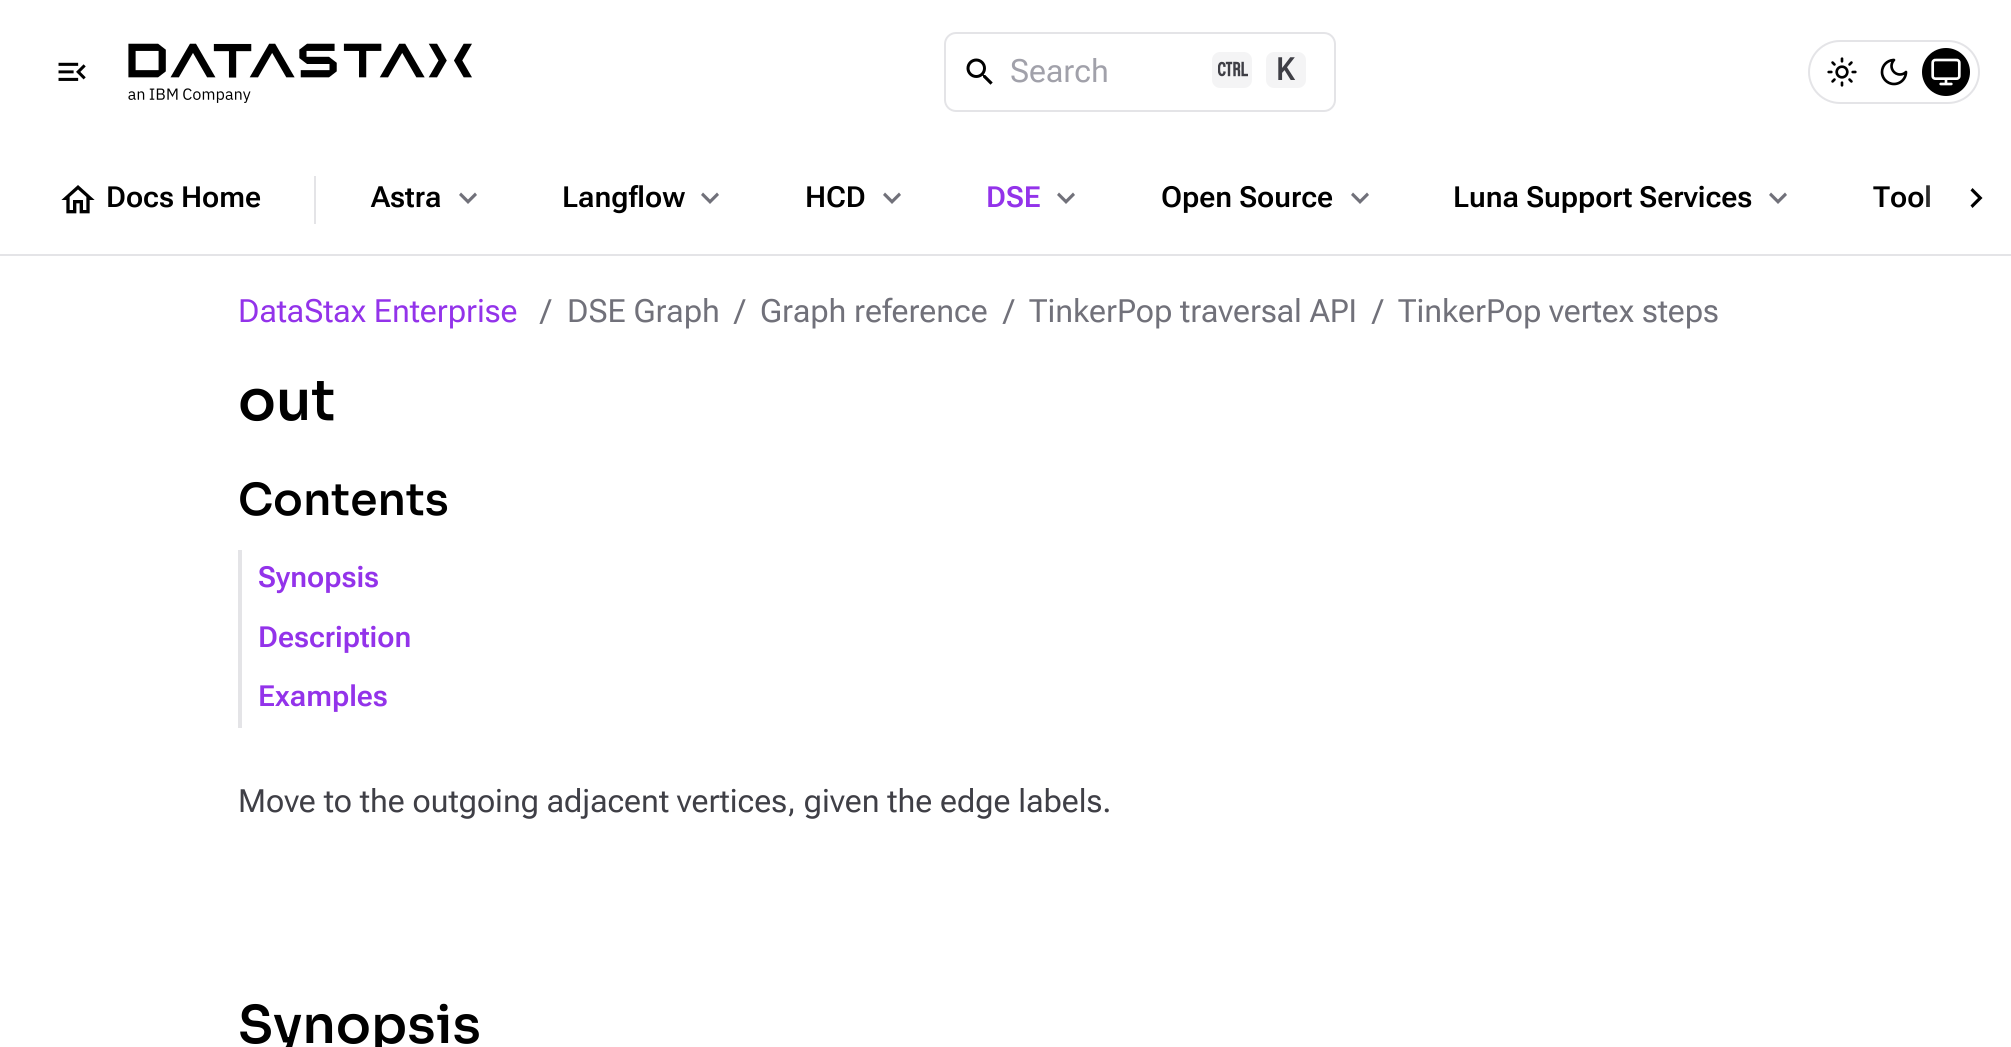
#include <cairo/cairo.h>
#include <math.h>
#include <stddef.h>

static cairo_t *cr;

static void use_color(int r, int g, int b) {
  cairo_set_source_rgb(cr, r / 255.0, g / 255.0, b / 255.0);
}

static void text(double x, double y, const char *s, const char *family, double size, int italic, int bold, int r, int g, int b) {
  cairo_select_font_face(cr, family, italic ? CAIRO_FONT_SLANT_ITALIC : CAIRO_FONT_SLANT_NORMAL,
    bold ? CAIRO_FONT_WEIGHT_BOLD : CAIRO_FONT_WEIGHT_NORMAL);
  cairo_set_font_size(cr, size);
  use_color(r, g, b);
  cairo_move_to(cr, x, y);
  cairo_show_text(cr, s);
}

static void box(double x, double y, double w, double h, int r, int g, int b) {
  use_color(r, g, b);
  cairo_rectangle(cr, x, y, w, h);
  cairo_fill(cr);
}

static void round_rect(double x, double y, double w, double h, double r) {
  cairo_new_sub_path(cr);
  cairo_arc(cr, x + w - r, y + h - r, r, 0, M_PI / 2);
  cairo_arc(cr, x + r, y + h - r, r, M_PI / 2, M_PI);
  cairo_arc(cr, x + r, y + r, r, M_PI, 1.5 * M_PI);
  cairo_arc(cr, x + w - r, y + r, r, 1.5 * M_PI, 2 * M_PI);
  cairo_close_path(cr);
}

static void picture(const char *path, double x, double y, double w, double h) {
  cairo_surface_t *image = cairo_image_surface_create_from_png(path);
  cairo_save(cr);
  cairo_set_source_surface(cr, image, x, y);
  cairo_rectangle(cr, x, y, w, h);
  cairo_fill(cr);
  cairo_restore(cr);
  cairo_surface_destroy(image);
}

static void draw(void) {
  cairo_pattern_t *gradient;
  use_color(255, 255, 255);
  cairo_paint(cr);
  box(0, 254, 2011, 2, 228, 228, 231);
  picture("img_01.png", 58, 62, 28, 19);
  picture("img_02.png", 128, 43, 344, 60);
  round_rect(945, 33, 390, 78, 11);
  cairo_stroke(cr);
  picture("img_03.png", 966, 58, 27, 27);
  use_color(244, 244, 245);
  round_rect(1212, 52, 40, 36, 8);
  cairo_fill(cr);
  picture("img_04.png", 1218, 61, 30, 16);
  round_rect(1266, 52, 40, 36, 8);
  cairo_fill(cr);
  round_rect(1809, 41, 170, 62, 31);
  use_color(228, 228, 231);
  cairo_stroke(cr);
  picture("img_05.png", 1827, 57, 30, 30);
  picture("img_06.png", 1880, 58, 28, 28);
  use_color(0, 0, 0);
  cairo_arc(cr, 1946, 72, 24, 0, 2 * M_PI);
  cairo_fill(cr);
  picture("img_07.png", 1931, 58, 30, 28);
  picture("img_08.png", 61, 185, 34, 29);
  box(314, 176, 2, 48, 228, 228, 231);
  use_color(113, 113, 122);
  cairo_new_path(cr);
  cairo_move_to(cr, 475, 192.5);
  cairo_line_to(cr, 468, 199.5);
  cairo_line_to(cr, 461, 192.5);
  cairo_line_to(cr, 459, 195);
  cairo_line_to(cr, 468, 204);
  cairo_line_to(cr, 477, 195);
  cairo_close_path(cr);
  cairo_fill(cr);
  cairo_new_path(cr);
  cairo_move_to(cr, 717, 192.5);
  cairo_line_to(cr, 710, 199.5);
  cairo_line_to(cr, 703, 192.5);
  cairo_line_to(cr, 701, 195);
  cairo_line_to(cr, 710, 204);
  cairo_line_to(cr, 719, 195);
  cairo_close_path(cr);
  cairo_fill(cr);
  cairo_new_path(cr);
  cairo_move_to(cr, 899, 192.5);
  cairo_line_to(cr, 892, 199.5);
  cairo_line_to(cr, 885, 192.5);
  cairo_line_to(cr, 883, 195);
  cairo_line_to(cr, 892, 204);
  cairo_line_to(cr, 901, 195);
  cairo_close_path(cr);
  cairo_fill(cr);
  cairo_new_path(cr);
  cairo_move_to(cr, 1073, 192.5);
  cairo_line_to(cr, 1066, 199.5);
  cairo_line_to(cr, 1059, 192.5);
  cairo_line_to(cr, 1057, 195);
  cairo_line_to(cr, 1066, 204);
  cairo_line_to(cr, 1075, 195);
  cairo_close_path(cr);
  cairo_fill(cr);
  cairo_new_path(cr);
  cairo_move_to(cr, 1367, 192.5);
  cairo_line_to(cr, 1360, 199.5);
  cairo_line_to(cr, 1353, 192.5);
  cairo_line_to(cr, 1351, 195);
  cairo_line_to(cr, 1360, 204);
  cairo_line_to(cr, 1369, 195);
  cairo_close_path(cr);
  cairo_fill(cr);
  cairo_new_path(cr);
  cairo_move_to(cr, 1785, 192.5);
  cairo_line_to(cr, 1778, 199.5);
  cairo_line_to(cr, 1771, 192.5);
  cairo_line_to(cr, 1769, 195);
  cairo_line_to(cr, 1778, 204);
  cairo_line_to(cr, 1787, 195);
  cairo_close_path(cr);
  cairo_fill(cr);
  box(238, 550, 4, 178, 228, 228, 231);
  text(1010, 82, "Search", "Roboto Flex", 32, 0, 0, 161, 161, 170);
  text(1276, 80, "K", "Roboto Mono Medium", 32, 0, 0, 63, 63, 70);
  text(106, 207, "Docs Home", "Roboto Flex SemiBold", 29, 0, 0, 0, 0, 0);
  text(371, 207, "Astra", "Roboto Flex SemiBold", 29, 0, 0, 0, 0, 0);
  text(562, 207, "Langflow", "Roboto Flex SemiBold", 29, 0, 0, 0, 0, 0);
  text(805, 207, "HCD", "Roboto Flex SemiBold", 29, 0, 0, 0, 0, 0);
  text(986, 207, "DSE", "Roboto Flex SemiBold", 29, 0, 0, 147, 51, 234);
  text(1161, 207, "Open Source", "Roboto Flex SemiBold", 29, 0, 0, 0, 0, 0);
  text(1453, 207, "Luna Support Services", "Roboto Flex SemiBold", 29, 0, 0, 0, 0, 0);
  text(1873, 207, "Tool", "Roboto Flex SemiBold", 29, 0, 0, 0, 0, 0);
  gradient = cairo_pattern_create_linear(1924, 200, 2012, 200);
  cairo_pattern_add_color_stop_rgba(gradient, 0, 1, 1, 1, 0);
  cairo_pattern_add_color_stop_rgba(gradient, 0.25, 1, 1, 1, 1);
  cairo_pattern_add_color_stop_rgba(gradient, 0.5, 1, 1, 1, 1);
  cairo_set_source(cr, gradient);
  cairo_pattern_destroy(gradient);
  cairo_new_path(cr);
  cairo_move_to(cr, 1924, 152);
  cairo_line_to(cr, 2000, 152);
  cairo_curve_to(cr, 2006.5, 152, 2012, 157.5, 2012, 164);
  cairo_line_to(cr, 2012, 248);
  cairo_line_to(cr, 1924, 248);
  cairo_close_path(cr);
  cairo_fill(cr);
  use_color(0, 0, 0);
  cairo_new_path(cr);
  cairo_move_to(cr, 1972.5, 188);
  cairo_line_to(cr, 1970.5, 190.5);
  cairo_line_to(cr, 1978, 198);
  cairo_line_to(cr, 1970.5, 205.5);
  cairo_line_to(cr, 1972.5, 208);
  cairo_line_to(cr, 1982.5, 198);
  cairo_close_path(cr);
  cairo_fill(cr);
  text(238, 322, "DataStax Enterprise", "Roboto Flex", 32, 0, 0, 147, 51, 234);
  text(541, 322, "/", "Roboto Flex", 32, 0, 0, 113, 113, 122);
  text(567, 322, "DSE Graph", "Roboto Flex", 32, 0, 0, 113, 113, 122);
  text(735, 322, "/", "Roboto Flex", 32, 0, 0, 113, 113, 122);
  text(760, 322, "Graph reference", "Roboto Flex", 32, 0, 0, 113, 113, 122);
  text(1004, 322, "/", "Roboto Flex", 32, 0, 0, 113, 113, 122);
  text(1029, 322, "TinkerPop traversal API", "Roboto Flex", 32, 0, 0, 113, 113, 122);
  text(1373, 322, "/", "Roboto Flex", 32, 0, 0, 113, 113, 122);
  text(1398, 322, "TinkerPop vertex steps", "Roboto Flex", 32, 0, 0, 113, 113, 122);
  text(238, 420, "out", "Sora Medium", 56, 0, 0, 0, 0, 0);
  text(238, 515, "Contents", "Sora Medium", 44, 0, 0, 0, 0, 0);
  text(258, 587, "Synopsis", "Roboto Flex SemiBold", 29, 0, 0, 147, 51, 234);
  text(258, 647, "Description", "Roboto Flex SemiBold", 29, 0, 0, 147, 51, 234);
  text(258, 706, "Examples", "Roboto Flex SemiBold", 29, 0, 0, 147, 51, 234);
  text(238, 812, "Move to the outgoing adjacent vertices, given the edge labels.", "Roboto Flex", 32, 0, 0, 63, 63, 70);
  text(238, 1043, "Synopsis", "Sora Medium", 52, 0, 0, 0, 0, 0);
}

int main(void) {
  cairo_surface_t *surface = cairo_image_surface_create(CAIRO_FORMAT_RGB24, 2011, 1047);
  cr = cairo_create(surface);
  cairo_font_options_t *options = cairo_font_options_create();
  cairo_font_options_set_hint_metrics(options, CAIRO_HINT_METRICS_OFF);
  cairo_font_options_set_hint_style(options, CAIRO_HINT_STYLE_NONE);
  cairo_set_font_options(cr, options);
  cairo_set_miter_limit(cr, 4);
  draw();
  cairo_surface_write_to_png(surface, "out.png");
  cairo_font_options_destroy(options);
  cairo_destroy(cr);
  cairo_surface_destroy(surface);
  return 0;
}
